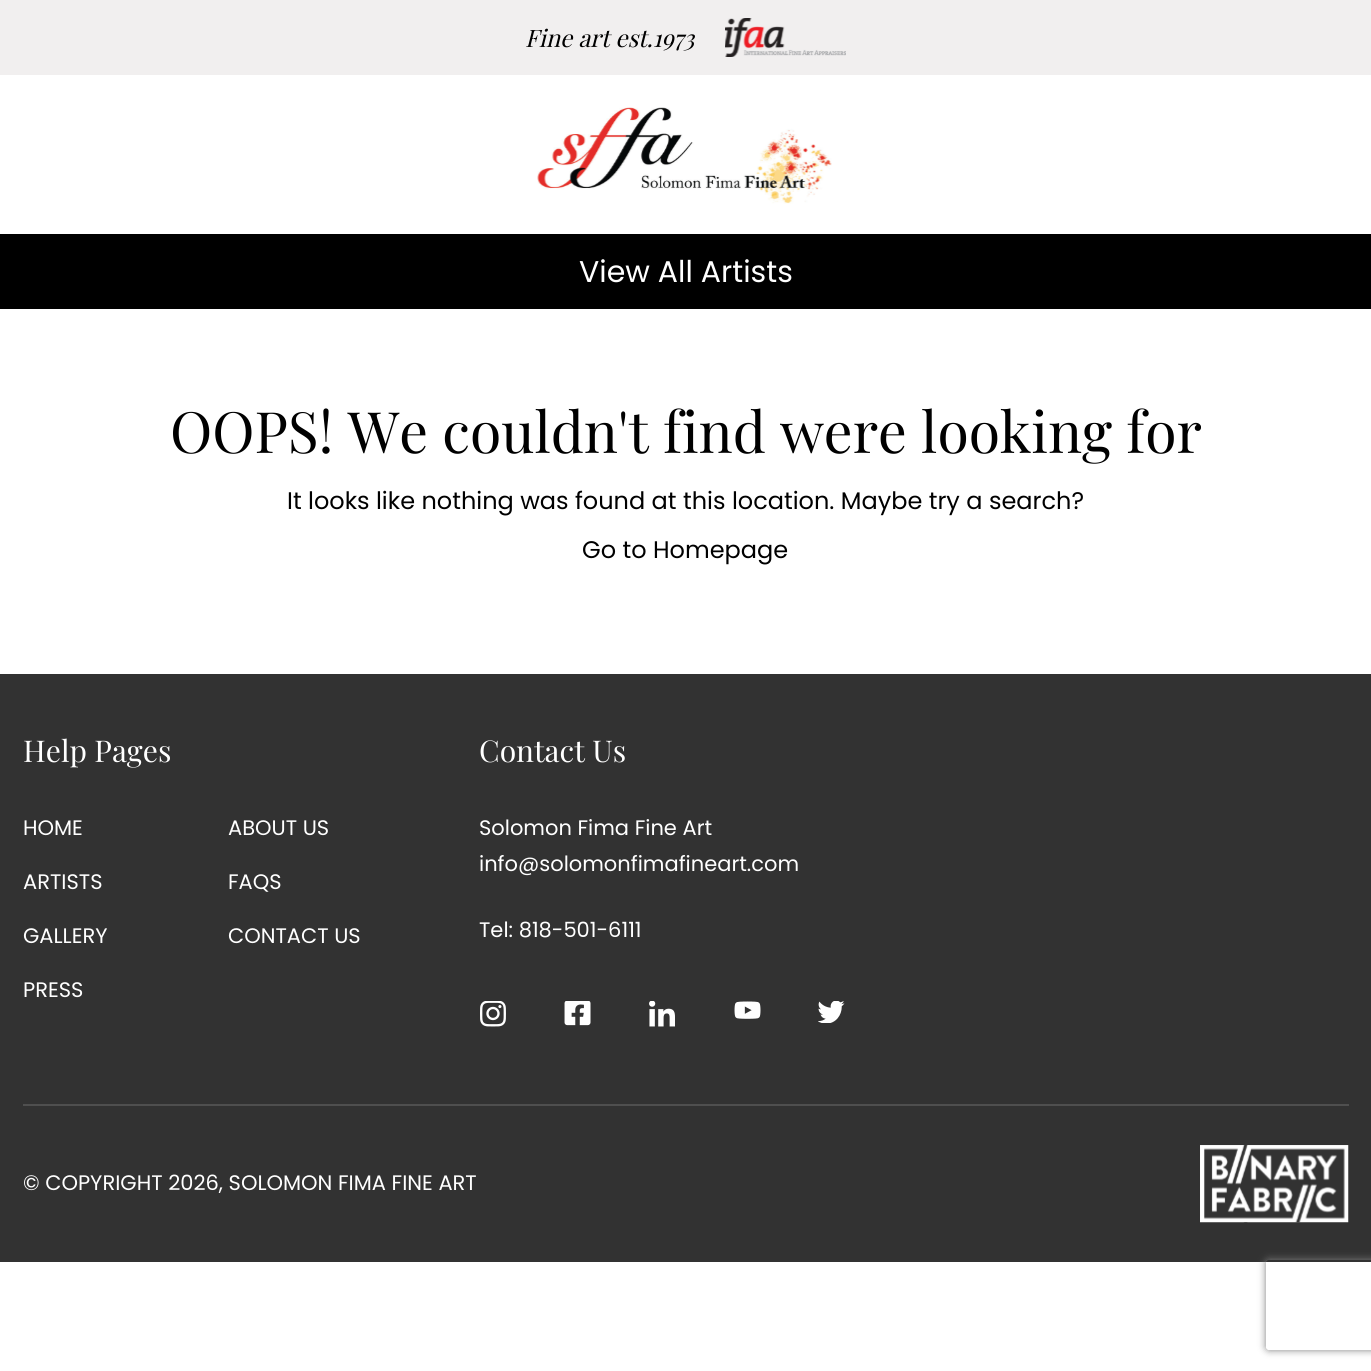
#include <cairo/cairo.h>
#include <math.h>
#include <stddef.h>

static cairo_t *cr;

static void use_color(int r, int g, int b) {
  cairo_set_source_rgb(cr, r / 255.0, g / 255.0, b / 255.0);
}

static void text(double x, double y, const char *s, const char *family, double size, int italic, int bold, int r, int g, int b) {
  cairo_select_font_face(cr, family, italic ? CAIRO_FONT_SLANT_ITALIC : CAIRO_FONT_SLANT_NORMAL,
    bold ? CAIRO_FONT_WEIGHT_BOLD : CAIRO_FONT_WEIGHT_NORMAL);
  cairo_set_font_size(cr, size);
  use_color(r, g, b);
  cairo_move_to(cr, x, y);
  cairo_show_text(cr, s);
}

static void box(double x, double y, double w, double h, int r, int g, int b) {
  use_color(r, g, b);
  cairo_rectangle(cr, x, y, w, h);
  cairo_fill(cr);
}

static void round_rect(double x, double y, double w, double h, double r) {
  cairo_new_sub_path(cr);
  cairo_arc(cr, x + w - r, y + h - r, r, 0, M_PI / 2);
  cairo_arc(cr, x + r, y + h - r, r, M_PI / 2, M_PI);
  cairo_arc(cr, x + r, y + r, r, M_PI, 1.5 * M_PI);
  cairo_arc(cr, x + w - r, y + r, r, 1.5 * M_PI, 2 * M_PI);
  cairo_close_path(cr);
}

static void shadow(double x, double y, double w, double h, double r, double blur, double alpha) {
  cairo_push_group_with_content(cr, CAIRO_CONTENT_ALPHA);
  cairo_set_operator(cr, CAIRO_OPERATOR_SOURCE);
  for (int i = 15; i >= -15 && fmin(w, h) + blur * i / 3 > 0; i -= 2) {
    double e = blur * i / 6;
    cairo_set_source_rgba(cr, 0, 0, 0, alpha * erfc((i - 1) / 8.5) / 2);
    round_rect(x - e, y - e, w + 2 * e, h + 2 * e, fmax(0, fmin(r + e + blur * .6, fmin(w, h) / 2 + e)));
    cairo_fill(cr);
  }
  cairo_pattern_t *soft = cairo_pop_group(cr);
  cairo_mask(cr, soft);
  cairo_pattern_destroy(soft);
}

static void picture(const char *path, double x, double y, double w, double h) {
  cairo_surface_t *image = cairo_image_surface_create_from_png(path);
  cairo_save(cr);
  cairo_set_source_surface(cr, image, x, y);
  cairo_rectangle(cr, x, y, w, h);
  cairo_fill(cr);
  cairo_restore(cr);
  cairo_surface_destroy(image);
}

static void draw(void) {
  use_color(255, 255, 255);
  cairo_paint(cr);
  box(0, 0, 1371, 75, 241, 239, 239);
  picture("img_01.png", 725, 18, 121, 39);
  picture("img_02.png", 537, 107, 295, 97);
  box(0, 234, 1371, 75, 0, 0, 0);
  box(0, 674, 1371, 588, 50, 50, 50);
  picture("img_03.png", 480, 1001, 26, 26);
  picture("img_04.png", 564, 1001, 27, 25);
  picture("img_05.png", 649, 1001, 26, 26);
  picture("img_06.png", 734, 1001, 27, 18);
  picture("img_07.png", 818, 1001, 27, 22);
  box(23, 1104, 1326, 2, 79, 79, 79);
  picture("img_08.png", 1200, 1145, 149, 78);
  cairo_save(cr);
  cairo_set_fill_rule(cr, CAIRO_FILL_RULE_EVEN_ODD);
  cairo_new_path(cr);
  cairo_move_to(cr, 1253, 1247);
  cairo_line_to(cr, 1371, 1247);
  cairo_line_to(cr, 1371, 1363);
  cairo_line_to(cr, 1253, 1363);
  cairo_close_path(cr);
  cairo_move_to(cr, 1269, 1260);
  cairo_line_to(cr, 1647, 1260);
  cairo_curve_to(cr, 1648.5, 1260, 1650, 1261.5, 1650, 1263);
  cairo_line_to(cr, 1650, 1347);
  cairo_curve_to(cr, 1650, 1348.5, 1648.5, 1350, 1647, 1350);
  cairo_line_to(cr, 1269, 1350);
  cairo_curve_to(cr, 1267.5, 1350, 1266, 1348.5, 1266, 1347);
  cairo_line_to(cr, 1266, 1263);
  cairo_curve_to(cr, 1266, 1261.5, 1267.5, 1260, 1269, 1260);
  cairo_close_path(cr);
  cairo_clip(cr);
  use_color(128, 128, 128);
  shadow(1266, 1260, 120, 90, 3, 4, 1);
  cairo_restore(cr);
  text(525, 47, "Fine art est.1973", "Playfair Display", 24, 1, 0, 0, 0, 0);
  text(579, 282, "View All Artists", "Poppins", 30, 0, 0, 255, 255, 255);
  text(170, 453, "OOPS! We couldn't find were looking for", "Playfair Display", 57, 0, 0, 0, 0, 0);
  text(287, 509, "It looks like nothing was found at this location. Maybe try a search?", "Poppins", 24, 0, 0, 0, 0, 0);
  text(582, 558, "Go to Homepage", "Poppins", 24, 0, 0, 0, 0, 0);
  text(23, 762, "Help Pages", "Playfair Display", 30, 0, 0, 255, 255, 255);
  text(23, 835, "HOME", "Poppins", 21, 0, 0, 255, 255, 255);
  text(23, 889, "ARTISTS", "Poppins", 21, 0, 0, 255, 255, 255);
  text(23, 943, "GALLERY", "Poppins", 21, 0, 0, 255, 255, 255);
  text(23, 997, "PRESS", "Poppins", 21, 0, 0, 255, 255, 255);
  text(228, 835, "ABOUT US", "Poppins", 21, 0, 0, 255, 255, 255);
  text(228, 889, "FAQS", "Poppins", 21, 0, 0, 255, 255, 255);
  text(228, 943, "CONTACT US", "Poppins", 21, 0, 0, 255, 255, 255);
  text(479, 762, "Contact Us", "Playfair Display", 30, 0, 0, 255, 255, 255);
  text(479, 835, "Solomon Fima Fine Art", "Poppins", 21, 0, 0, 255, 255, 255);
  text(479, 871, "info@solomonfimafineart.com", "Poppins", 21, 0, 0, 255, 255, 255);
  text(479, 937, "Tel: 818-501-6111", "Poppins", 21, 0, 0, 255, 255, 255);
  text(23, 1190, "© COPYRIGHT 2026, SOLOMON FIMA FINE ART", "Poppins", 21, 0, 0, 255, 255, 255);
}

int main(void) {
  cairo_surface_t *surface = cairo_image_surface_create(CAIRO_FORMAT_RGB24, 1371, 1371);
  cr = cairo_create(surface);
  cairo_font_options_t *options = cairo_font_options_create();
  cairo_font_options_set_hint_metrics(options, CAIRO_HINT_METRICS_OFF);
  cairo_font_options_set_hint_style(options, CAIRO_HINT_STYLE_NONE);
  cairo_set_font_options(cr, options);
  cairo_set_miter_limit(cr, 4);
  draw();
  cairo_surface_write_to_png(surface, "out.png");
  cairo_font_options_destroy(options);
  cairo_destroy(cr);
  cairo_surface_destroy(surface);
  return 0;
}
